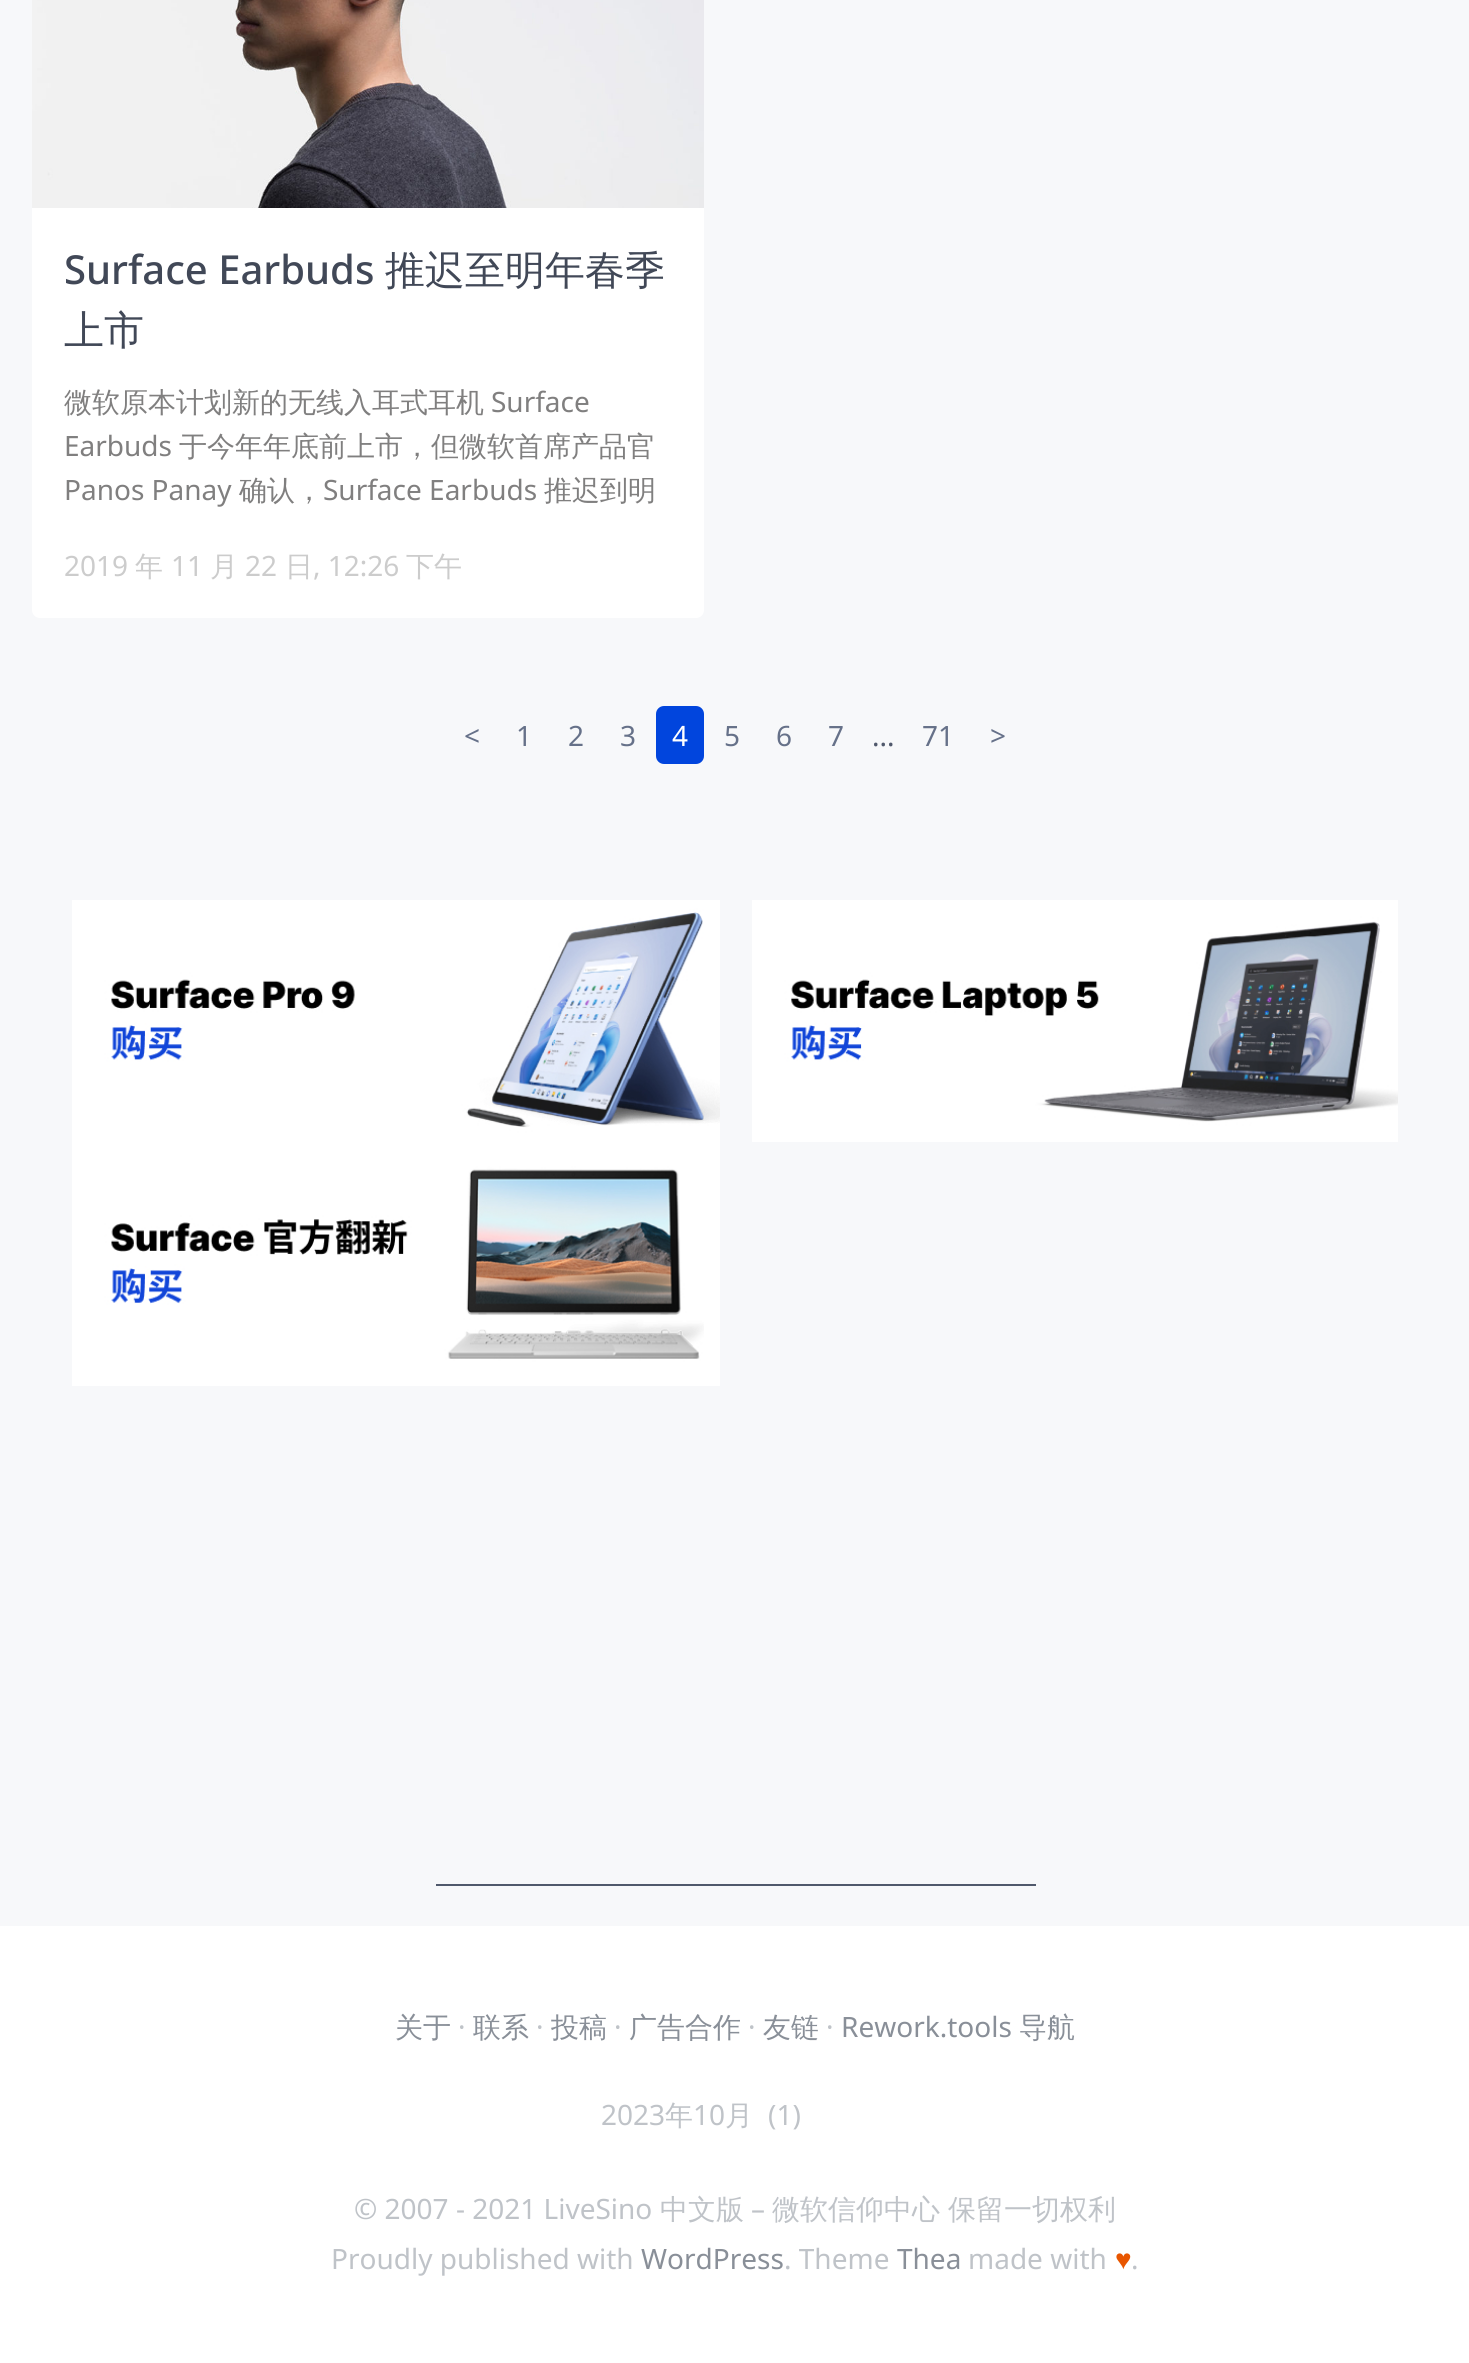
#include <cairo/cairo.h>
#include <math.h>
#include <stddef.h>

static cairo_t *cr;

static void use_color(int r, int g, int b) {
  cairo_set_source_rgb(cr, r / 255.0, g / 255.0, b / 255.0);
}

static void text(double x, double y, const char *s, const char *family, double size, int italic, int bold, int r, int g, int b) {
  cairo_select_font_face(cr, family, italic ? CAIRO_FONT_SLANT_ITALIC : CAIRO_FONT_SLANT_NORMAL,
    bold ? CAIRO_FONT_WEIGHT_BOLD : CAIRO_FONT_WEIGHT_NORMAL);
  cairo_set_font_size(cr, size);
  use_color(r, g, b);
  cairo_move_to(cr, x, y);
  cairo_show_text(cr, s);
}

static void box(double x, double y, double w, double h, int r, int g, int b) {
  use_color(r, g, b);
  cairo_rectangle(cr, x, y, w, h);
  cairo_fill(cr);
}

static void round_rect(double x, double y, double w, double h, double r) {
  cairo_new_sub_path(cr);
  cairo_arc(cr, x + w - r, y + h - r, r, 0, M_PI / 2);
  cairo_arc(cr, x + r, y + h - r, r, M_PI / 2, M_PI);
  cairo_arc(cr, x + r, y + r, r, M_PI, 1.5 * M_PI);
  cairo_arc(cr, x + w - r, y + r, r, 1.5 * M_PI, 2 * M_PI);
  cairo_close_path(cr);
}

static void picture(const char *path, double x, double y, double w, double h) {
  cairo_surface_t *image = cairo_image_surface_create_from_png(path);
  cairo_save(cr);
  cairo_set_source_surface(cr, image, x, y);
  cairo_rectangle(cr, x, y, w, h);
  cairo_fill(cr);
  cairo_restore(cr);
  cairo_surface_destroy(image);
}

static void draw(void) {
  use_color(255, 255, 255);
  cairo_paint(cr);
  box(0, 0, 1469, 1926, 247, 248, 250);
  use_color(255, 255, 255);
  round_rect(32, -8, 672, 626, 8);
  cairo_fill(cr);
  picture("img_01.png", 32, 0, 672, 208);
  use_color(1, 69, 221);
  round_rect(656, 706, 48, 58, 8);
  cairo_fill(cr);
  picture("img_02.png", 72, 900, 648, 242);
  picture("img_03.png", 752, 900, 646, 242);
  picture("img_04.png", 72, 1142, 648, 244);
  box(436, 1884, 600, 2, 80, 89, 108);
  text(64, 284, "Surface Earbuds", "Noto Sans Medium", 40, 0, 0, 65, 72, 87);
  text(385, 284, "推迟至明年春季", "WenQuanYi Zen Hei Medium", 40, 0, 0, 65, 72, 87);
  text(64, 344, "上市", "WenQuanYi Zen Hei Medium", 40, 0, 0, 65, 72, 87);
  text(64, 412, "微软原本计划新的无线入耳式耳机", "WenQuanYi Zen Hei Medium", 28, 0, 0, 128, 127, 127);
  text(491, 412, "Surface", "Noto Sans", 28, 0, 0, 128, 127, 127);
  text(64, 456, "Earbuds", "Noto Sans", 28, 0, 0, 128, 127, 127);
  text(179, 456, "于今年年底前上市，但微软首席产品官", "WenQuanYi Zen Hei Medium", 28, 0, 0, 128, 127, 127);
  text(64, 500, "Panos Panay", "Noto Sans", 28, 0, 0, 128, 127, 127);
  text(239, 500, "确认，", "WenQuanYi Zen Hei Medium", 28, 0, 0, 128, 127, 127);
  text(323, 500, "Surface Earbuds", "Noto Sans", 28, 0, 0, 128, 127, 127);
  text(544, 500, "推迟到明", "WenQuanYi Zen Hei Medium", 28, 0, 0, 128, 127, 127);
  text(64, 576, "2019", "Noto Sans", 28, 0, 0, 204, 204, 204);
  text(135, 576, "年", "WenQuanYi Zen Hei Medium", 28, 0, 0, 204, 204, 204);
  text(171, 576, "11", "Noto Sans", 28, 0, 0, 204, 204, 204);
  text(210, 576, "月", "WenQuanYi Zen Hei Medium", 28, 0, 0, 204, 204, 204);
  text(245, 576, "22", "Noto Sans", 28, 0, 0, 204, 204, 204);
  text(285, 576, "日", "WenQuanYi Zen Hei Medium", 28, 0, 0, 204, 204, 204);
  text(313, 576, ", 12:26", "Noto Sans", 28, 0, 0, 204, 204, 204);
  text(406, 576, "下午", "WenQuanYi Zen Hei Medium", 28, 0, 0, 204, 204, 204);
  text(464, 746, "<", "Noto Sans", 28, 0, 0, 102, 113, 137);
  text(516, 746, "1", "Noto Sans", 28, 0, 0, 102, 113, 137);
  text(568, 746, "2", "Noto Sans", 28, 0, 0, 102, 113, 137);
  text(620, 746, "3", "Noto Sans", 28, 0, 0, 102, 113, 137);
  text(672, 746, "4", "Noto Sans", 28, 0, 0, 255, 255, 255);
  text(724, 746, "5", "Noto Sans", 28, 0, 0, 102, 113, 137);
  text(776, 746, "6", "Noto Sans", 28, 0, 0, 102, 113, 137);
  text(828, 746, "7", "Noto Sans", 28, 0, 0, 102, 113, 137);
  text(922, 746, "71", "Noto Sans", 28, 0, 0, 102, 113, 137);
  text(990, 746, ">", "Noto Sans", 28, 0, 0, 102, 113, 137);
  text(872, 746, "...", "Noto Sans", 28, 0, 0, 80, 89, 108);
  text(395, 2037, "关于", "WenQuanYi Zen Hei Medium", 28, 0, 0, 137, 143, 152);
  text(458, 2037, "·", "Noto Sans", 28, 0, 0, 191, 195, 200);
  text(473, 2037, "联系", "WenQuanYi Zen Hei Medium", 28, 0, 0, 137, 143, 152);
  text(536, 2037, "·", "Noto Sans", 28, 0, 0, 191, 195, 200);
  text(551, 2037, "投稿", "WenQuanYi Zen Hei Medium", 28, 0, 0, 137, 143, 152);
  text(614, 2037, "·", "Noto Sans", 28, 0, 0, 191, 195, 200);
  text(629, 2037, "广告合作", "WenQuanYi Zen Hei Medium", 28, 0, 0, 137, 143, 152);
  text(748, 2037, "·", "Noto Sans", 28, 0, 0, 191, 195, 200);
  text(763, 2037, "友链", "WenQuanYi Zen Hei Medium", 28, 0, 0, 137, 143, 152);
  text(826, 2037, "·", "Noto Sans", 28, 0, 0, 191, 195, 200);
  text(841, 2037, "Rework.tools", "Noto Sans", 28, 0, 0, 137, 143, 152);
  text(1019, 2037, "导航", "WenQuanYi Zen Hei Medium", 28, 0, 0, 137, 143, 152);
  text(601, 2125, "2023", "Noto Sans", 28, 0, 0, 191, 195, 200);
  text(665, 2125, "年", "WenQuanYi Zen Hei Medium", 28, 0, 0, 191, 195, 200);
  text(693, 2125, "10", "Noto Sans", 28, 0, 0, 191, 195, 200);
  text(725, 2125, "月", "WenQuanYi Zen Hei Medium", 28, 0, 0, 191, 195, 200);
  text(768, 2125, "(1)", "Noto Sans", 28, 0, 0, 191, 195, 200);
  text(354, 2219, "© 2007 - 2021 LiveSino", "Noto Sans", 28, 0, 0, 191, 195, 200);
  text(660, 2219, "中文版", "WenQuanYi Zen Hei Medium", 28, 0, 0, 191, 195, 200);
  text(751, 2219, "–", "Noto Sans", 28, 0, 0, 191, 195, 200);
  text(772, 2219, "微软信仰中心", "WenQuanYi Zen Hei Medium", 28, 0, 0, 191, 195, 200);
  text(948, 2219, "保留一切权利", "WenQuanYi Zen Hei Medium", 28, 0, 0, 191, 195, 200);
  text(331, 2269, "Proudly published with", "Noto Sans", 28, 0, 0, 191, 195, 200);
  text(641, 2269, "WordPress", "Noto Sans", 28, 0, 0, 137, 143, 152);
  text(784, 2269, ". Theme", "Noto Sans", 28, 0, 0, 191, 195, 200);
  text(897, 2269, "Thea", "Noto Sans", 28, 0, 0, 137, 143, 152);
  text(968, 2269, "made with", "Noto Sans", 28, 0, 0, 191, 195, 200);
  text(1115, 2269, "♥", "Liberation Sans", 28, 0, 0, 232, 86, 0);
  text(1131, 2269, ".", "Noto Sans", 28, 0, 0, 191, 195, 200);
}

int main(void) {
  cairo_surface_t *surface = cairo_image_surface_create(CAIRO_FORMAT_RGB24, 1469, 2363);
  cr = cairo_create(surface);
  cairo_font_options_t *options = cairo_font_options_create();
  cairo_font_options_set_hint_metrics(options, CAIRO_HINT_METRICS_OFF);
  cairo_font_options_set_hint_style(options, CAIRO_HINT_STYLE_NONE);
  cairo_set_font_options(cr, options);
  cairo_set_miter_limit(cr, 4);
  draw();
  cairo_surface_write_to_png(surface, "out.png");
  cairo_font_options_destroy(options);
  cairo_destroy(cr);
  cairo_surface_destroy(surface);
  return 0;
}
